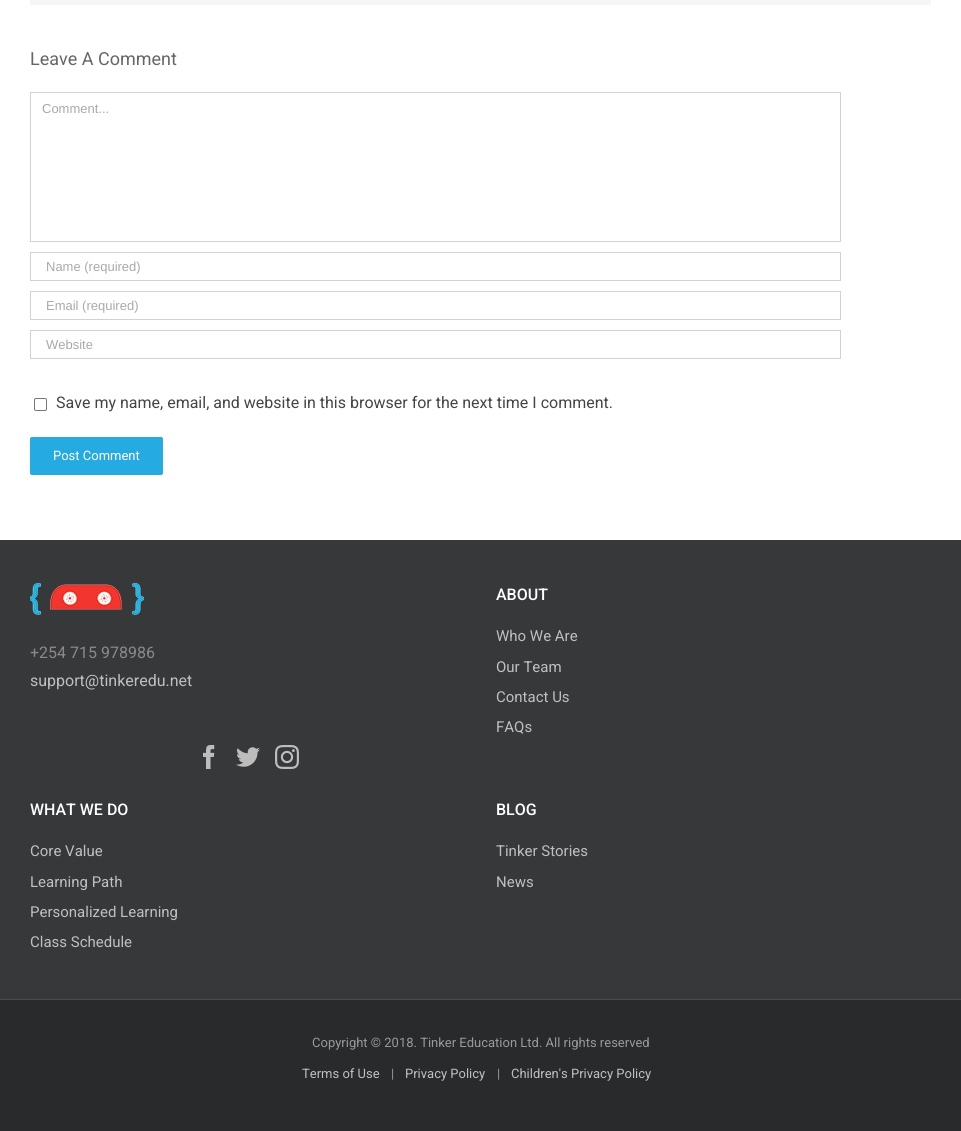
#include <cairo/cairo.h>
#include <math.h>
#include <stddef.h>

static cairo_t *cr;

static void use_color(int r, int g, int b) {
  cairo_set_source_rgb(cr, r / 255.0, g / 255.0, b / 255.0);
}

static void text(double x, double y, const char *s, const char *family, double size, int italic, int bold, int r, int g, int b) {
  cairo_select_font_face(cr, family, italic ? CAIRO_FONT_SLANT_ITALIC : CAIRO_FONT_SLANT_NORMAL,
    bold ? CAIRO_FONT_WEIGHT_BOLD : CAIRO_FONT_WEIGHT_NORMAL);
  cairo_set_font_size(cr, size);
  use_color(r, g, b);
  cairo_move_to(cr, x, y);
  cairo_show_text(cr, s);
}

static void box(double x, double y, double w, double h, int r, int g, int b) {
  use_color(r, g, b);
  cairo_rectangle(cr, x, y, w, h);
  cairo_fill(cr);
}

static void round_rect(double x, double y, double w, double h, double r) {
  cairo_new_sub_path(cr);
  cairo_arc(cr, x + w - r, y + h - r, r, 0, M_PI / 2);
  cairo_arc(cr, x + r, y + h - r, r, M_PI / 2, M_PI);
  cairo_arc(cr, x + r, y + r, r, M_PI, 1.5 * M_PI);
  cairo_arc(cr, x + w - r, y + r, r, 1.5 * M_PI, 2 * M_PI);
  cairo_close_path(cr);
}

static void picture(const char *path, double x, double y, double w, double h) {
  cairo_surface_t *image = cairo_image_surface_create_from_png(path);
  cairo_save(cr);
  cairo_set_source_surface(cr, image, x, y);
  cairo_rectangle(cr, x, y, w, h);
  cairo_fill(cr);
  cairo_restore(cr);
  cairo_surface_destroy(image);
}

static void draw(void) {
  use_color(255, 255, 255);
  cairo_paint(cr);
  box(30, 0, 901, 5, 246, 246, 246);
  cairo_rectangle(cr, 30.5, 92.5, 810, 149);
  use_color(210, 210, 210);
  cairo_set_line_width(cr, 1);
  cairo_stroke(cr);
  cairo_rectangle(cr, 30.5, 252.5, 810, 28);
  cairo_stroke(cr);
  cairo_rectangle(cr, 30.5, 291.5, 810, 28);
  cairo_stroke(cr);
  cairo_rectangle(cr, 30.5, 330.5, 810, 28);
  cairo_stroke(cr);
  round_rect(34.5, 398.5, 12, 12, 1.5);
  use_color(118, 118, 118);
  cairo_stroke(cr);
  use_color(37, 170, 225);
  round_rect(30, 437, 133, 38, 2);
  cairo_fill(cr);
  box(0, 540, 961, 459, 54, 56, 57);
  picture("img_01.png", 30, 583, 114, 32);
  picture("img_02.png", 203, 745, 12, 24);
  picture("img_03.png", 236, 747, 24, 20);
  picture("img_04.png", 275, 745, 24, 24);
  box(0, 1000, 961, 131, 40, 42, 43);
  box(0, 999, 961, 1, 75, 76, 77);
  text(30, 65, "Leave A Comment", "Roboto", 18, 0, 0, 102, 102, 102);
  text(42, 113, "Comment...", "Liberation Sans", 13, 0, 0, 170, 169, 169);
  text(46, 271, "Name (required)", "Liberation Sans", 13, 0, 0, 170, 169, 169);
  text(46, 310, "Email (required)", "Liberation Sans", 13, 0, 0, 170, 169, 169);
  text(46, 349, "Website", "Liberation Sans", 13, 0, 0, 170, 169, 169);
  text(56, 408, "Save my name, email, and website in this browser for the next time I comment.", "Roboto", 16, 0, 0, 68, 68, 68);
  text(53, 460, "Post Comment", "Roboto", 13, 0, 0, 255, 255, 255);
  text(30, 658, "+254 715 978986", "Roboto", 16, 0, 0, 140, 137, 137);
  text(30, 686, "support@tinkeredu.net", "Roboto", 16, 0, 0, 191, 191, 191);
  text(496, 600, "ABOUT", "Roboto Medium", 16, 0, 0, 255, 255, 255);
  text(496, 641, "Who We Are", "Roboto", 15, 0, 0, 191, 191, 191);
  text(496, 672, "Our Team", "Roboto", 15, 0, 0, 191, 191, 191);
  text(496, 702, "Contact Us", "Roboto", 15, 0, 0, 191, 191, 191);
  text(496, 732, "FAQs", "Roboto", 15, 0, 0, 191, 191, 191);
  text(30, 815, "WHAT WE DO", "Roboto Medium", 16, 0, 0, 255, 255, 255);
  text(30, 856, "Core Value", "Roboto", 15, 0, 0, 191, 191, 191);
  text(30, 887, "Learning Path", "Roboto", 15, 0, 0, 191, 191, 191);
  text(30, 917, "Personalized Learning", "Roboto", 15, 0, 0, 191, 191, 191);
  text(30, 947, "Class Schedule", "Roboto", 15, 0, 0, 191, 191, 191);
  text(496, 815, "BLOG", "Roboto Medium", 16, 0, 0, 255, 255, 255);
  text(496, 856, "Tinker Stories", "Roboto", 15, 0, 0, 191, 191, 191);
  text(496, 887, "News", "Roboto", 15, 0, 0, 191, 191, 191);
  text(312, 1047, "Copyright © 2018. Tinker Education Ltd. All rights reserved", "Roboto", 13, 0, 0, 153, 153, 153);
  text(302, 1078, "Terms of Use", "Roboto", 13, 0, 0, 191, 191, 191);
  text(391, 1078, "|", "Roboto", 13, 0, 0, 153, 153, 153);
  text(405, 1078, "Privacy Policy", "Roboto", 13, 0, 0, 191, 191, 191);
  text(497, 1078, "|", "Roboto", 13, 0, 0, 153, 153, 153);
  text(511, 1078, "Children's Privacy Policy", "Roboto", 13, 0, 0, 191, 191, 191);
}

int main(void) {
  cairo_surface_t *surface = cairo_image_surface_create(CAIRO_FORMAT_RGB24, 961, 1131);
  cr = cairo_create(surface);
  cairo_font_options_t *options = cairo_font_options_create();
  cairo_font_options_set_hint_metrics(options, CAIRO_HINT_METRICS_OFF);
  cairo_font_options_set_hint_style(options, CAIRO_HINT_STYLE_NONE);
  cairo_set_font_options(cr, options);
  cairo_set_miter_limit(cr, 4);
  draw();
  cairo_surface_write_to_png(surface, "out.png");
  cairo_font_options_destroy(options);
  cairo_destroy(cr);
  cairo_surface_destroy(surface);
  return 0;
}
